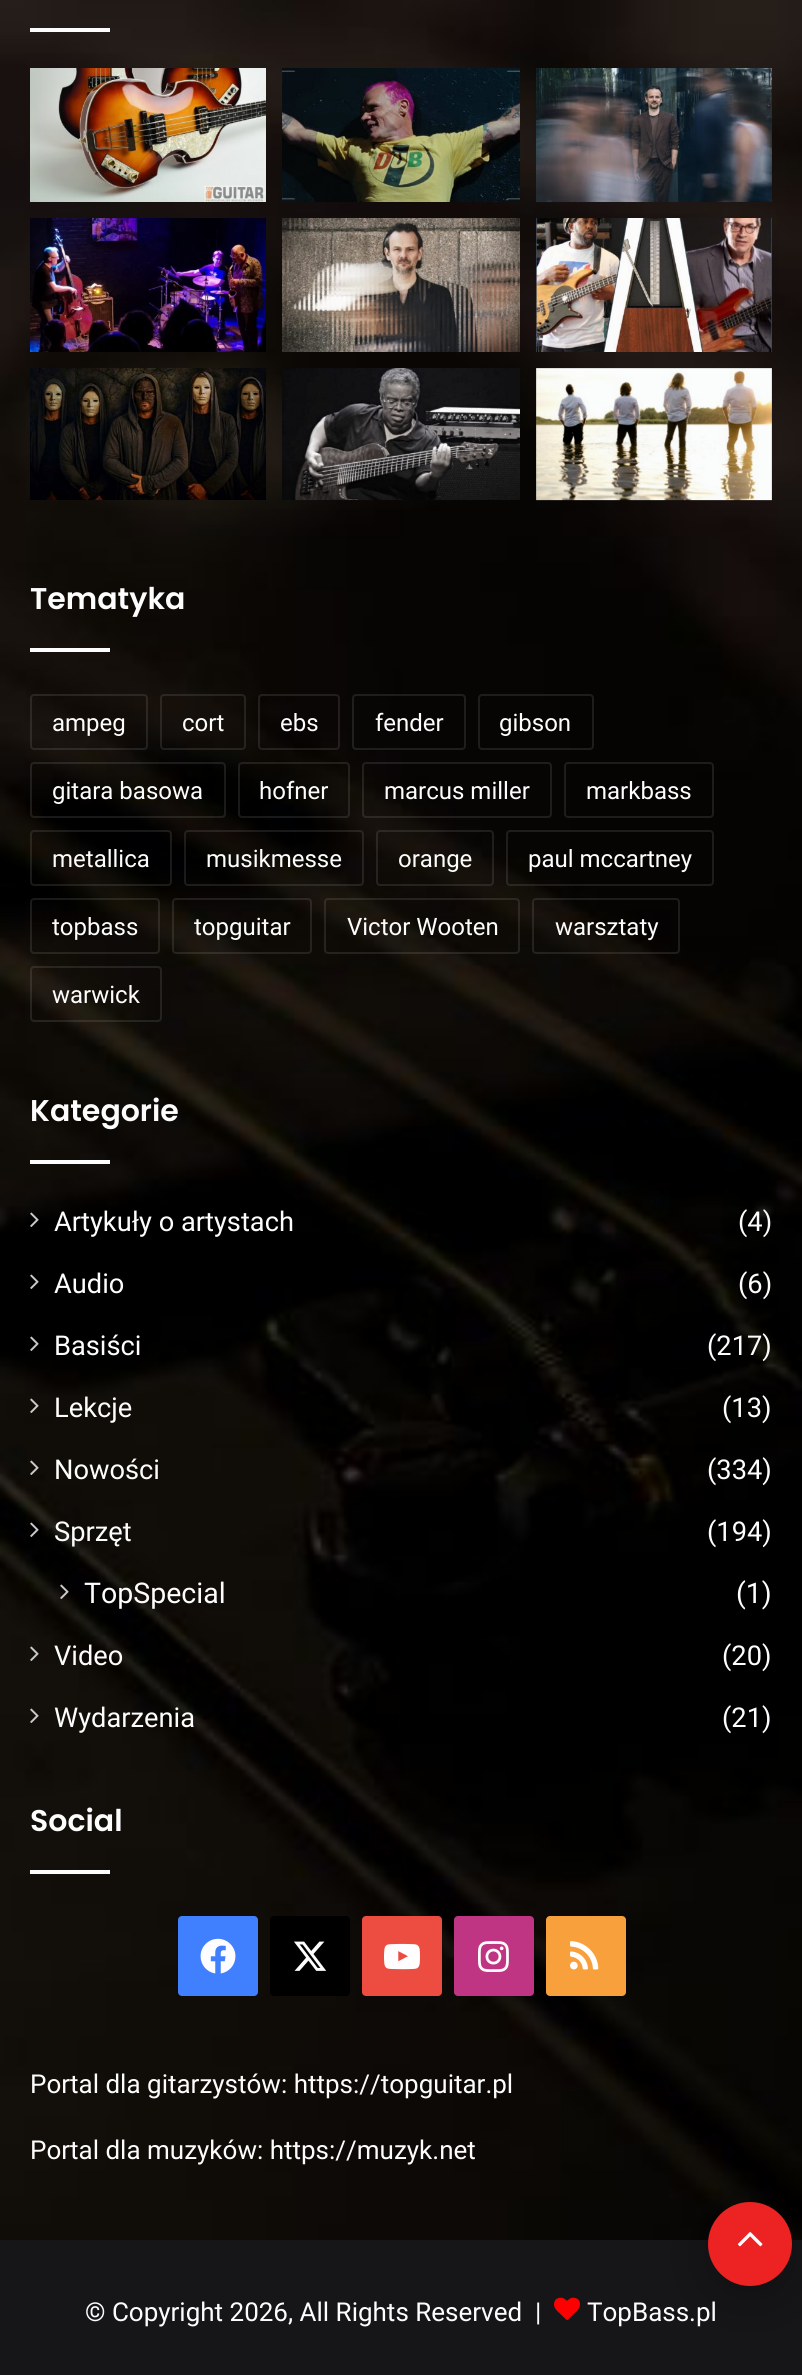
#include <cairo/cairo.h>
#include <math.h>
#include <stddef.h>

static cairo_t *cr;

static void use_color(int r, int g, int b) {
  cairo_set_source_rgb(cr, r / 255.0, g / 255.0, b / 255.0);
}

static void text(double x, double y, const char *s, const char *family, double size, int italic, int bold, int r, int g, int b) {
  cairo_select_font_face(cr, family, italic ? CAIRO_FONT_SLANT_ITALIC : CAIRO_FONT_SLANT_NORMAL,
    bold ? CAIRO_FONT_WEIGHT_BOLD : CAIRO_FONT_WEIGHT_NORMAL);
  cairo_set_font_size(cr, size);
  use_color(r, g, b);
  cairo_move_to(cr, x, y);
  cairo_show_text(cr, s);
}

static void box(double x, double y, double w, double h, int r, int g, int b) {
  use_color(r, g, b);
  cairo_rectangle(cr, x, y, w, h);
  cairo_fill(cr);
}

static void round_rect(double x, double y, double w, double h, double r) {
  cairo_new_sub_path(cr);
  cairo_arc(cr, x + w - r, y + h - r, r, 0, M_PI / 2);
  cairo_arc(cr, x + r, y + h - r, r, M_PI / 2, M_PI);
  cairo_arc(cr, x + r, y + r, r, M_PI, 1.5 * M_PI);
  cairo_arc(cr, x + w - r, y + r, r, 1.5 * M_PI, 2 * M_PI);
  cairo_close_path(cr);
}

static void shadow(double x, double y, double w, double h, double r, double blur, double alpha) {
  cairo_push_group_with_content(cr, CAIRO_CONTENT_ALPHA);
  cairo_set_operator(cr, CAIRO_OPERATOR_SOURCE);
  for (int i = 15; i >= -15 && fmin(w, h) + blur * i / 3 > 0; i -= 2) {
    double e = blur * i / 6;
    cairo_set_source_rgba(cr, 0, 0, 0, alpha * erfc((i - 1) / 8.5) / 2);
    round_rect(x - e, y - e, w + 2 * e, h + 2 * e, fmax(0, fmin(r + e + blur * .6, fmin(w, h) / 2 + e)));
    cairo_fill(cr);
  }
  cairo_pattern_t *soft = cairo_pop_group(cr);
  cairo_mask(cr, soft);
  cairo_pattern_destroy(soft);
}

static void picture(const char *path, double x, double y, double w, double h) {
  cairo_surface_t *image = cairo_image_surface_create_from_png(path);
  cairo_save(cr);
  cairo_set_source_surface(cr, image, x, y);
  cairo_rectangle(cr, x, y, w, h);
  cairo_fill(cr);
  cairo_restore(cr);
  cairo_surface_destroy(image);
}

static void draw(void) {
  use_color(255, 255, 255);
  cairo_paint(cr);
  picture("img_01.png", 0, 0, 802, 2240);
  cairo_set_source_rgba(cr, 1, 1, 1, 0.99);
  cairo_rectangle(cr, 30, 28, 80, 4);
  cairo_fill(cr);
  picture("img_02.png", 30, 68, 236, 134);
  picture("img_03.png", 282, 68, 238, 134);
  picture("img_04.png", 536, 68, 236, 134);
  picture("img_05.png", 30, 218, 236, 134);
  picture("img_06.png", 282, 218, 238, 134);
  picture("img_07.png", 536, 218, 236, 134);
  picture("img_08.png", 30, 368, 236, 132);
  picture("img_09.png", 282, 368, 238, 132);
  picture("img_10.png", 536, 368, 236, 133);
  cairo_rectangle(cr, 30, 648, 80, 4);
  cairo_fill(cr);
  round_rect(31, 695, 116, 54, 3);
  cairo_set_source_rgba(cr, 1, 1, 1, 0.1);
  cairo_stroke(cr);
  round_rect(161, 695, 84, 54, 3);
  cairo_stroke(cr);
  round_rect(259, 695, 80, 54, 3);
  cairo_stroke(cr);
  round_rect(353, 695, 112, 54, 3);
  cairo_stroke(cr);
  round_rect(479, 695, 114, 54, 3);
  use_color(30, 29, 28);
  cairo_stroke(cr);
  round_rect(31, 763, 194, 54, 3);
  cairo_set_source_rgba(cr, 1, 1, 1, 0.1);
  cairo_stroke(cr);
  round_rect(239, 763, 110, 54, 3);
  cairo_stroke(cr);
  round_rect(363, 763, 188, 54, 3);
  cairo_stroke(cr);
  round_rect(565, 763, 148, 54, 3);
  use_color(30, 29, 27);
  cairo_stroke(cr);
  round_rect(31, 831, 140, 54, 3);
  cairo_set_source_rgba(cr, 1, 1, 1, 0.1);
  cairo_stroke(cr);
  round_rect(185, 831, 178, 54, 3);
  cairo_stroke(cr);
  round_rect(377, 831, 116, 54, 3);
  cairo_stroke(cr);
  round_rect(507, 831, 206, 54, 3);
  cairo_stroke(cr);
  round_rect(31, 899, 128, 54, 3);
  cairo_stroke(cr);
  round_rect(173, 899, 138, 54, 3);
  cairo_stroke(cr);
  round_rect(325, 899, 194, 54, 3);
  cairo_stroke(cr);
  round_rect(533, 899, 146, 54, 3);
  cairo_stroke(cr);
  round_rect(31, 967, 130, 54, 3);
  cairo_stroke(cr);
  cairo_set_source_rgba(cr, 1, 1, 1, 0.99);
  cairo_rectangle(cr, 30, 1160, 80, 4);
  cairo_fill(cr);
  picture("img_11.png", 30, 1212, 9, 15);
  picture("img_12.png", 30, 1274, 9, 15);
  picture("img_13.png", 30, 1336, 9, 15);
  picture("img_14.png", 30, 1398, 9, 15);
  picture("img_15.png", 30, 1460, 9, 15);
  picture("img_16.png", 30, 1522, 9, 15);
  picture("img_17.png", 60, 1584, 9, 15);
  picture("img_18.png", 30, 1646, 9, 15);
  picture("img_19.png", 30, 1708, 9, 15);
  box(30, 1870, 80, 4, 253, 253, 253);
  use_color(64, 127, 253);
  round_rect(178, 1916, 80, 80, 4);
  cairo_fill(cr);
  picture("img_20.png", 200, 1938, 36, 36);
  cairo_set_source_rgba(cr, 0, 0, 0, 0.99);
  round_rect(270, 1916, 80, 80, 4);
  cairo_fill(cr);
  picture("img_21.png", 294, 1941, 33, 30);
  cairo_set_source_rgba(cr, 0.937, 0.306, 0.255, 0.99);
  round_rect(362, 1916, 80, 80, 4);
  cairo_fill(cr);
  picture("img_22.png", 384, 1943, 36, 27);
  cairo_set_source_rgba(cr, 0.757, 0.208, 0.518, 0.99);
  round_rect(454, 1916, 80, 80, 4);
  cairo_fill(cr);
  picture("img_23.png", 478, 1941, 31, 31);
  cairo_set_source_rgba(cr, 0.98, 0.639, 0.239, 0.99);
  round_rect(546, 1916, 80, 80, 4);
  cairo_fill(cr);
  picture("img_24.png", 570, 1941, 29, 29);
  box(0, 2240, 802, 135, 22, 22, 25);
  picture("img_25.png", 554, 2297, 26, 23);
  use_color(0, 0, 0);
  shadow(708, 2212, 84, 84, 42, 25, 0.3);
  use_color(236, 34, 35);
  cairo_arc(cr, 750, 2244, 42, 0, 2 * M_PI);
  cairo_fill(cr);
  picture("img_26.png", 737, 2232, 26, 15);
  text(30, 609, "Tematyka", "Poppins SemiBold", 30, 0, 0, 253, 253, 253);
  text(52, 731, "ampeg", "Roboto", 24, 0, 0, 253, 253, 253);
  text(182, 731, "cort", "Roboto", 24, 0, 0, 253, 253, 253);
  text(280, 731, "ebs", "Roboto", 24, 0, 0, 253, 253, 253);
  text(375, 731, "fender", "Roboto", 24, 0, 0, 253, 253, 253);
  text(499, 731, "gibson", "Roboto", 24, 0, 0, 253, 253, 253);
  text(52, 799, "gitara basowa", "Roboto", 24, 0, 0, 253, 253, 253);
  text(259, 799, "hofner", "Roboto", 24, 0, 0, 253, 253, 253);
  text(384, 799, "marcus miller", "Roboto", 24, 0, 0, 253, 253, 253);
  text(586, 799, "markbass", "Roboto", 24, 0, 0, 253, 253, 253);
  text(52, 867, "metallica", "Roboto", 24, 0, 0, 253, 253, 253);
  text(206, 867, "musikmesse", "Roboto", 24, 0, 0, 253, 253, 253);
  text(398, 867, "orange", "Roboto", 24, 0, 0, 253, 253, 253);
  text(528, 867, "paul mccartney", "Roboto", 24, 0, 0, 253, 253, 253);
  text(52, 935, "topbass", "Roboto", 24, 0, 0, 253, 253, 253);
  text(194, 935, "topguitar", "Roboto", 24, 0, 0, 253, 253, 253);
  text(347, 935, "Victor Wooten", "Roboto", 24, 0, 0, 253, 253, 253);
  text(555, 935, "warsztaty", "Roboto", 24, 0, 0, 253, 253, 253);
  text(52, 1003, "warwick", "Roboto", 24, 0, 0, 253, 253, 253);
  text(30, 1121, "Kategorie", "Poppins SemiBold", 30, 0, 0, 253, 253, 253);
  text(54, 1231, "Artykuły o artystach", "Roboto", 27.25, 0, 0, 253, 253, 253);
  text(738, 1231, "(4)", "Roboto", 27.25, 0, 0, 253, 253, 253);
  text(54, 1293, "Audio", "Roboto", 27.25, 0, 0, 253, 253, 253);
  text(738, 1293, "(6)", "Roboto", 27.25, 0, 0, 253, 253, 253);
  text(54, 1355, "Basiści", "Roboto", 27.25, 0, 0, 253, 253, 253);
  text(707, 1355, "(217)", "Roboto", 27.25, 0, 0, 253, 253, 253);
  text(54, 1417, "Lekcje", "Roboto", 27.25, 0, 0, 253, 253, 253);
  text(722, 1417, "(13)", "Roboto", 27.25, 0, 0, 253, 253, 253);
  text(54, 1479, "Nowości", "Roboto", 27.25, 0, 0, 253, 253, 253);
  text(707, 1479, "(334)", "Roboto", 27.25, 0, 0, 253, 253, 253);
  text(54, 1541, "Sprzęt", "Roboto", 27.25, 0, 0, 253, 253, 253);
  text(707, 1541, "(194)", "Roboto", 27.25, 0, 0, 253, 253, 253);
  text(84, 1603, "TopSpecial", "Roboto", 28.5, 0, 0, 253, 253, 253);
  text(736, 1603, "(1)", "Roboto", 28.5, 0, 0, 253, 253, 253);
  text(54, 1665, "Video", "Roboto", 27.25, 0, 0, 253, 253, 253);
  text(722, 1665, "(20)", "Roboto", 27.25, 0, 0, 253, 253, 253);
  text(54, 1727, "Wydarzenia", "Roboto", 27.25, 0, 0, 253, 253, 253);
  text(722, 1727, "(21)", "Roboto", 27.25, 0, 0, 253, 253, 253);
  text(30, 1831, "Social", "Poppins SemiBold", 30, 0, 0, 253, 253, 253);
  text(30, 2093, "Portal dla gitarzystów: https://topguitar.pl", "Roboto", 26, 0, 0, 253, 253, 253);
  text(30, 2159, "Portal dla muzyków: https://muzyk.net", "Roboto", 26, 0, 0, 253, 253, 253);
  text(85, 2321, "© Copyright 2026, All Rights Reserved  |", "Roboto", 26, 0, 0, 253, 253, 253);
  text(587, 2321, "TopBass.pl", "Roboto", 26, 0, 0, 253, 253, 253);
}

int main(void) {
  cairo_surface_t *surface = cairo_image_surface_create(CAIRO_FORMAT_RGB24, 802, 2375);
  cr = cairo_create(surface);
  cairo_font_options_t *options = cairo_font_options_create();
  cairo_font_options_set_hint_metrics(options, CAIRO_HINT_METRICS_OFF);
  cairo_font_options_set_hint_style(options, CAIRO_HINT_STYLE_NONE);
  cairo_set_font_options(cr, options);
  cairo_set_miter_limit(cr, 4);
  draw();
  cairo_surface_write_to_png(surface, "out.png");
  cairo_font_options_destroy(options);
  cairo_destroy(cr);
  cairo_surface_destroy(surface);
  return 0;
}
